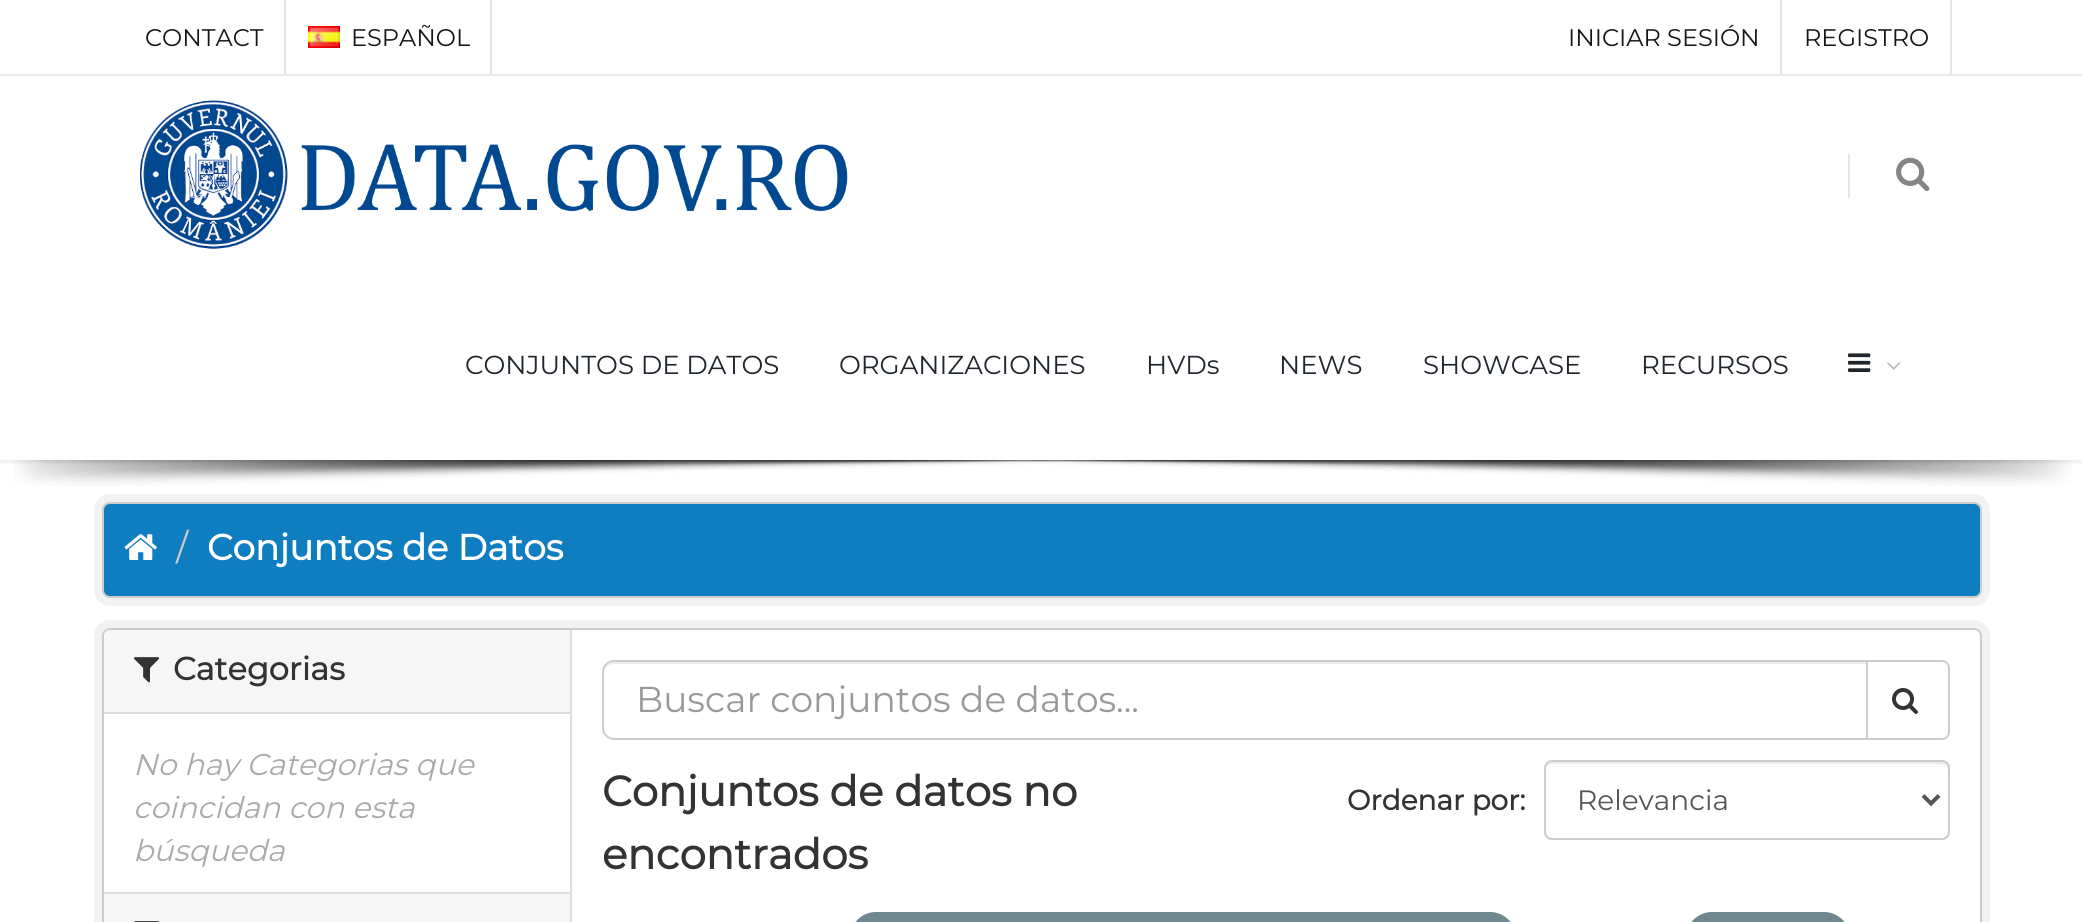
#include <cairo/cairo.h>
#include <math.h>
#include <stddef.h>

static cairo_t *cr;

static void use_color(int r, int g, int b) {
  cairo_set_source_rgb(cr, r / 255.0, g / 255.0, b / 255.0);
}

static void text(double x, double y, const char *s, const char *family, double size, int italic, int bold, int r, int g, int b) {
  cairo_select_font_face(cr, family, italic ? CAIRO_FONT_SLANT_ITALIC : CAIRO_FONT_SLANT_NORMAL,
    bold ? CAIRO_FONT_WEIGHT_BOLD : CAIRO_FONT_WEIGHT_NORMAL);
  cairo_set_font_size(cr, size);
  use_color(r, g, b);
  cairo_move_to(cr, x, y);
  cairo_show_text(cr, s);
}

static void box(double x, double y, double w, double h, int r, int g, int b) {
  use_color(r, g, b);
  cairo_rectangle(cr, x, y, w, h);
  cairo_fill(cr);
}

static void round_rect(double x, double y, double w, double h, double r) {
  cairo_new_sub_path(cr);
  cairo_arc(cr, x + w - r, y + h - r, r, 0, M_PI / 2);
  cairo_arc(cr, x + r, y + h - r, r, M_PI / 2, M_PI);
  cairo_arc(cr, x + r, y + r, r, M_PI, 1.5 * M_PI);
  cairo_arc(cr, x + w - r, y + r, r, 1.5 * M_PI, 2 * M_PI);
  cairo_close_path(cr);
}

static void shadow(double x, double y, double w, double h, double r, double blur, double alpha) {
  cairo_push_group_with_content(cr, CAIRO_CONTENT_ALPHA);
  cairo_set_operator(cr, CAIRO_OPERATOR_SOURCE);
  for (int i = 15; i >= -15 && fmin(w, h) + blur * i / 3 > 0; i -= 2) {
    double e = blur * i / 6;
    cairo_set_source_rgba(cr, 0, 0, 0, alpha * erfc((i - 1) / 8.5) / 2);
    round_rect(x - e, y - e, w + 2 * e, h + 2 * e, fmax(0, fmin(r + e + blur * .6, fmin(w, h) / 2 + e)));
    cairo_fill(cr);
  }
  cairo_pattern_t *soft = cairo_pop_group(cr);
  cairo_mask(cr, soft);
  cairo_pattern_destroy(soft);
}

static void picture(const char *path, double x, double y, double w, double h) {
  cairo_surface_t *image = cairo_image_surface_create_from_png(path);
  cairo_save(cr);
  cairo_set_source_surface(cr, image, x, y);
  cairo_rectangle(cr, x, y, w, h);
  cairo_fill(cr);
  cairo_restore(cr);
  cairo_surface_destroy(image);
}

static void draw(void) {
  use_color(255, 255, 255);
  cairo_paint(cr);
  box(0, 74, 2082, 2, 242, 242, 242);
  box(284, 0, 2, 74, 230, 230, 230);
  box(490, 0, 2, 74, 230, 230, 230);
  picture("img_01.png", 308, 26, 32, 22);
  box(1780, 0, 2, 74, 230, 230, 230);
  box(1950, 0, 2, 74, 230, 230, 230);
  cairo_save(cr);
  cairo_set_fill_rule(cr, CAIRO_FILL_RULE_EVEN_ODD);
  cairo_new_path(cr);
  cairo_move_to(cr, 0, 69);
  cairo_line_to(cr, 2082, 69);
  cairo_line_to(cr, 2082, 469);
  cairo_line_to(cr, 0, 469);
  cairo_close_path(cr);
  cairo_move_to(cr, 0, 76);
  cairo_line_to(cr, 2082, 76);
  cairo_line_to(cr, 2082, 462);
  cairo_line_to(cr, 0, 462);
  cairo_close_path(cr);
  cairo_clip(cr);
  use_color(0, 0, 0);
  shadow(0, 76, 2082, 386, 0, 2, 0.1);
  cairo_restore(cr);
  box(0, 460, 2082, 2, 242, 242, 242);
  picture("img_02.png", 139, 100, 709, 149);
  box(1848, 154, 2, 44, 230, 230, 230);
  picture("img_03.png", 1896, 157, 34, 35);
  picture("img_04.png", 1848, 353, 23, 19);
  picture("img_05.png", 1887, 362, 14, 8);
  picture("img_06.png", 13, 460, 2059, 26);
  round_rect(98, 498, 1888, 104, 12);
  use_color(242, 242, 242);
  cairo_set_line_width(cr, 8);
  cairo_stroke(cr);
  use_color(14, 126, 193);
  round_rect(103, 503, 1878, 94, 7);
  cairo_fill_preserve(cr);
  use_color(204, 204, 204);
  cairo_set_line_width(cr, 2);
  cairo_stroke(cr);
  picture("img_07.png", 124, 534, 33, 26);
  round_rect(98, 624, 1888, 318, 12);
  use_color(242, 242, 242);
  cairo_set_line_width(cr, 8);
  cairo_stroke(cr);
  use_color(255, 255, 255);
  round_rect(103, 629, 1878, 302, 7);
  cairo_fill_preserve(cr);
  use_color(204, 204, 204);
  cairo_set_line_width(cr, 2);
  cairo_stroke(cr);
  use_color(246, 246, 246);
  cairo_new_path(cr);
  cairo_move_to(cr, 110, 630);
  cairo_line_to(cr, 570, 630);
  cairo_line_to(cr, 570, 714);
  cairo_line_to(cr, 104, 714);
  cairo_line_to(cr, 104, 636);
  cairo_curve_to(cr, 104, 632.5, 106.5, 630, 110, 630);
  cairo_close_path(cr);
  cairo_fill(cr);
  box(104, 712, 466, 2, 221, 221, 221);
  picture("img_08.png", 134, 657, 26, 26);
  box(104, 894, 466, 28, 246, 246, 246);
  box(104, 892, 466, 2, 221, 221, 221);
  picture("img_09.png", 134, 921, 25, 1);
  box(570, 630, 2, 292, 221, 221, 221);
  use_color(236, 236, 236);
  cairo_new_path(cr);
  cairo_move_to(cr, 614, 664);
  cairo_line_to(cr, 1866, 664);
  cairo_line_to(cr, 1866, 662);
  cairo_line_to(cr, 614, 662);
  cairo_curve_to(cr, 607, 662, 604, 668, 604, 674);
  cairo_curve_to(cr, 604, 668, 608, 664, 614, 664);
  cairo_close_path(cr);
  cairo_fill(cr);
  cairo_new_path(cr);
  cairo_move_to(cr, 614, 661);
  cairo_line_to(cr, 1867, 661);
  cairo_line_to(cr, 1867, 739);
  cairo_line_to(cr, 614, 739);
  cairo_curve_to(cr, 608, 739, 603, 734, 603, 728);
  cairo_line_to(cr, 603, 672);
  cairo_curve_to(cr, 603, 666, 608, 661, 614, 661);
  cairo_close_path(cr);
  use_color(204, 204, 204);
  cairo_stroke(cr);
  use_color(255, 255, 255);
  cairo_new_path(cr);
  cairo_move_to(cr, 1867, 661);
  cairo_line_to(cr, 1942, 661);
  cairo_curve_to(cr, 1946, 661, 1949, 664, 1949, 668);
  cairo_line_to(cr, 1949, 732);
  cairo_curve_to(cr, 1949, 736, 1946, 739, 1942, 739);
  cairo_line_to(cr, 1867, 739);
  cairo_close_path(cr);
  cairo_fill_preserve(cr);
  use_color(204, 204, 204);
  cairo_stroke(cr);
  picture("img_10.png", 1892, 688, 26, 26);
  use_color(236, 236, 236);
  cairo_new_path(cr);
  cairo_move_to(cr, 1552, 764);
  cairo_line_to(cr, 1942, 764);
  cairo_curve_to(cr, 1945, 764, 1948, 767, 1948, 770);
  cairo_curve_to(cr, 1948, 766, 1947, 762, 1942, 762);
  cairo_line_to(cr, 1552, 762);
  cairo_curve_to(cr, 1547, 762, 1546, 766, 1546, 770);
  cairo_curve_to(cr, 1546, 767, 1549, 764, 1552, 764);
  cairo_close_path(cr);
  cairo_fill(cr);
  round_rect(1545, 761, 404, 78, 7);
  use_color(204, 204, 204);
  cairo_stroke(cr);
  cairo_new_path(cr);
  cairo_move_to(cr, 1923, 795.5);
  cairo_line_to(cr, 1931, 803.5);
  cairo_line_to(cr, 1939, 795.5);
  use_color(85, 85, 85);
  cairo_set_line_width(cr, 4);
  cairo_stroke(cr);
  use_color(111, 136, 144);
  round_rect(850, 912, 666, 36, 26);
  cairo_fill(cr);
  round_rect(1686, 912, 164, 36, 26);
  cairo_fill(cr);
  text(145, 46, "CONTACT", "Montserrat Thin", 24, 0, 0, 21, 21, 21);
  text(351, 46, "ESPAÑOL", "Montserrat Thin", 24, 0, 0, 21, 21, 21);
  text(1568, 46, "INICIAR SESIÓN", "Montserrat Thin", 24, 0, 0, 21, 21, 21);
  text(1804, 46, "REGISTRO", "Montserrat Thin", 24, 0, 0, 21, 21, 21);
  text(465, 374, "CONJUNTOS DE DATOS", "Montserrat Thin", 26, 0, 0, 31, 38, 45);
  text(839, 374, "ORGANIZACIONES", "Montserrat Thin", 26, 0, 0, 31, 38, 45);
  text(1146, 374, "HVDs", "Montserrat Thin", 26, 0, 0, 31, 38, 45);
  text(1279, 374, "NEWS", "Montserrat Thin", 26, 0, 0, 31, 38, 45);
  text(1423, 374, "SHOWCASE", "Montserrat Thin", 26, 0, 0, 31, 38, 45);
  text(1641, 374, "RECURSOS", "Montserrat Thin", 26, 0, 0, 31, 38, 45);
  text(176, 560, "/", "Montserrat Thin", 36, 0, 0, 204, 204, 204);
  text(207, 560, "Conjuntos de Datos", "Montserrat", 36, 0, 1, 255, 255, 255);
  text(173, 680, "Categorias", "Montserrat", 32, 0, 1, 51, 51, 51);
  text(133, 775, "No hay Categorias que", "Montserrat Thin", 30, 1, 0, 170, 170, 170);
  text(133, 818, "coincidan con esta", "Montserrat Thin", 30, 1, 0, 170, 170, 170);
  text(133, 861, "búsqueda", "Montserrat Thin", 30, 1, 0, 170, 170, 170);
  text(636, 712, "Buscar conjuntos de datos...", "Montserrat Thin", 36, 0, 0, 153, 153, 153);
  text(602, 806, "Conjuntos de datos no", "Montserrat", 42, 0, 1, 51, 51, 51);
  text(602, 869, "encontrados", "Montserrat", 42, 0, 1, 51, 51, 51);
  text(1347, 810, "Ordenar por:", "Montserrat", 28, 0, 1, 51, 51, 51);
  text(1577, 810, "Relevancia", "Montserrat Thin", 28, 0, 0, 85, 85, 85);
}

int main(void) {
  cairo_surface_t *surface = cairo_image_surface_create(CAIRO_FORMAT_RGB24, 2082, 922);
  cr = cairo_create(surface);
  cairo_font_options_t *options = cairo_font_options_create();
  cairo_font_options_set_hint_metrics(options, CAIRO_HINT_METRICS_OFF);
  cairo_font_options_set_hint_style(options, CAIRO_HINT_STYLE_NONE);
  cairo_set_font_options(cr, options);
  cairo_set_miter_limit(cr, 4);
  draw();
  cairo_surface_write_to_png(surface, "out.png");
  cairo_font_options_destroy(options);
  cairo_destroy(cr);
  cairo_surface_destroy(surface);
  return 0;
}
